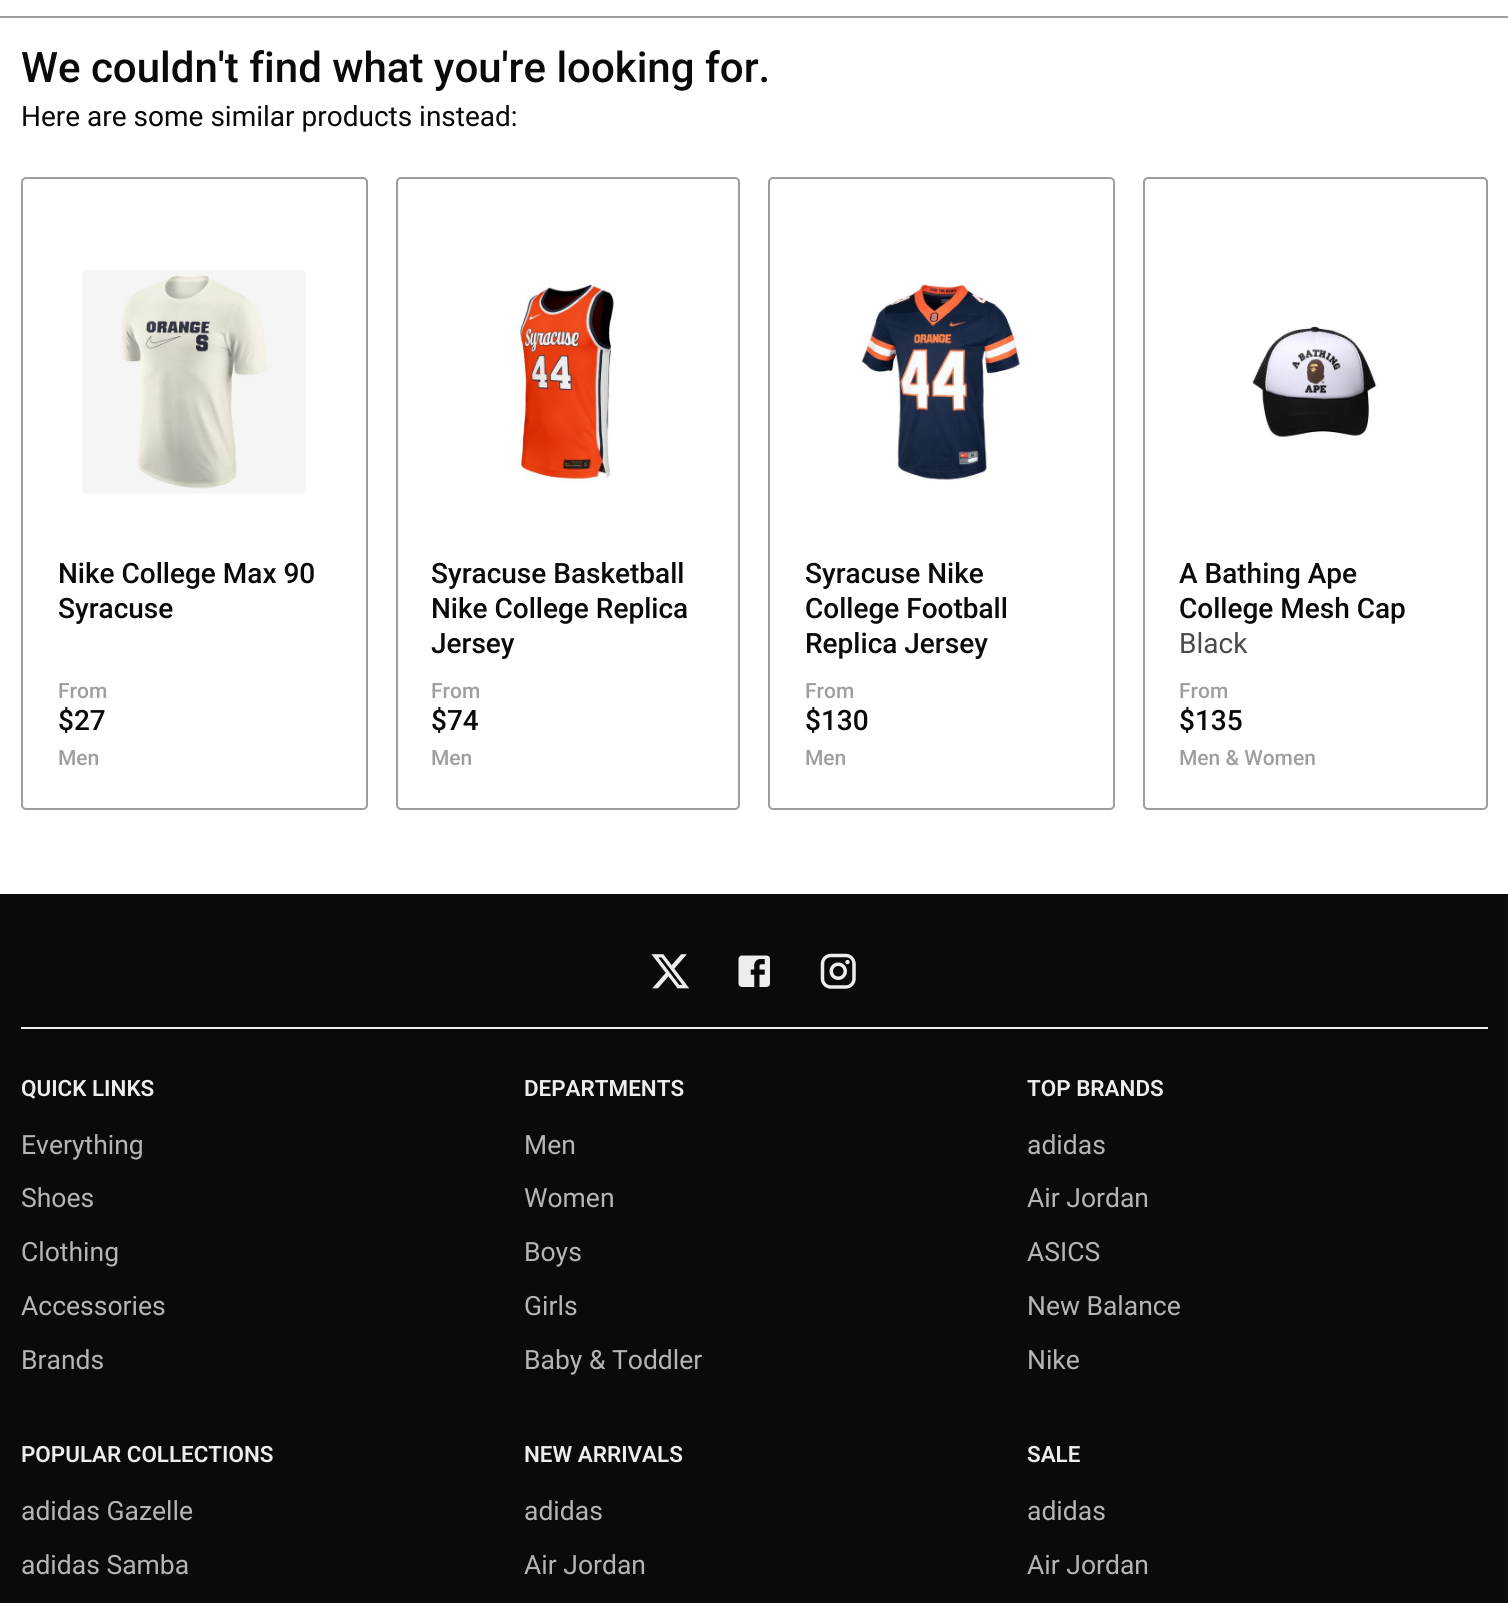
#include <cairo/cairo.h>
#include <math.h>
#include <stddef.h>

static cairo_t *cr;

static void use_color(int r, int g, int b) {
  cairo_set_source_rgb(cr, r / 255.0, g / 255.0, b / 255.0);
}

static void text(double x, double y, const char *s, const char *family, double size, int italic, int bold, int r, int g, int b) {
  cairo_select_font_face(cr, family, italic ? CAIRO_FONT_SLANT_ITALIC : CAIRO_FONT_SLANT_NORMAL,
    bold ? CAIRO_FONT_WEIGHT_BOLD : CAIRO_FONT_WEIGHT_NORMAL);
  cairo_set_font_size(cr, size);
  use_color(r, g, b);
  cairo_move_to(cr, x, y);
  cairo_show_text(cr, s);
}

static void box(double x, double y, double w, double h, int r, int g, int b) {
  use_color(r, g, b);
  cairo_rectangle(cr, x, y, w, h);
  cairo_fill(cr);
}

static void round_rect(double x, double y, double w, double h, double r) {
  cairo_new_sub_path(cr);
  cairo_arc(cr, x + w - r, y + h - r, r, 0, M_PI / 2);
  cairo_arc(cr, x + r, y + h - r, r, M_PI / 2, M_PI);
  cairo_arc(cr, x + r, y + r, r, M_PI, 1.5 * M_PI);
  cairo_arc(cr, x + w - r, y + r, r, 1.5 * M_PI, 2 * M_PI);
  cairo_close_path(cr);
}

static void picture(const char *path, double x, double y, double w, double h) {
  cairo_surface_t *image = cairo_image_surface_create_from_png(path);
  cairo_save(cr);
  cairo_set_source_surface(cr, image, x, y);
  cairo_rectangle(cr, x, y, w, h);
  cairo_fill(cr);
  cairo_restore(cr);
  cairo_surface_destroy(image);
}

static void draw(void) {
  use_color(255, 255, 255);
  cairo_paint(cr);
  box(0, 16, 1508, 2, 158, 158, 158);
  round_rect(22, 178, 345, 631, 4);
  cairo_stroke(cr);
  picture("img_01.png", 82, 270, 224, 224);
  round_rect(397, 178, 342, 631, 4);
  cairo_stroke(cr);
  picture("img_02.png", 519, 284, 95, 201);
  round_rect(769, 178, 345, 631, 4);
  cairo_stroke(cr);
  picture("img_03.png", 861, 284, 162, 197);
  round_rect(1144, 178, 343, 631, 4);
  cairo_stroke(cr);
  picture("img_04.png", 1252, 326, 126, 112);
  box(0, 894, 1508, 709, 10, 10, 10);
  box(21, 1027, 1467, 2, 237, 237, 237);
  picture("img_05.png", 651, 954, 39, 35);
  picture("img_06.png", 738, 955, 32, 32);
  picture("img_07.png", 820, 953, 36, 36);
  text(21, 82, "We couldn't find what you're looking for.", "Roboto Medium", 42, 0, 0, 10, 10, 10);
  text(21, 126, "Here are some similar products instead:", "Roboto", 28, 0, 0, 10, 10, 10);
  text(58, 583, "Nike College Max 90", "Roboto Medium", 28, 0, 0, 10, 10, 10);
  text(58, 618, "Syracuse", "Roboto Medium", 28, 0, 0, 10, 10, 10);
  text(58, 698, "From", "Roboto Medium", 21, 0, 0, 158, 158, 158);
  text(58, 730, "$27", "Roboto Medium", 28, 0, 0, 10, 10, 10);
  text(58, 765, "Men", "Roboto Medium", 21, 0, 0, 158, 158, 158);
  text(431, 583, "Syracuse Basketball", "Roboto Medium", 28, 0, 0, 10, 10, 10);
  text(431, 618, "Nike College Replica", "Roboto Medium", 28, 0, 0, 10, 10, 10);
  text(431, 653, "Jersey", "Roboto Medium", 28, 0, 0, 10, 10, 10);
  text(431, 698, "From", "Roboto Medium", 21, 0, 0, 158, 158, 158);
  text(431, 730, "$74", "Roboto Medium", 28, 0, 0, 10, 10, 10);
  text(431, 765, "Men", "Roboto Medium", 21, 0, 0, 158, 158, 158);
  text(805, 583, "Syracuse Nike", "Roboto Medium", 28, 0, 0, 10, 10, 10);
  text(805, 618, "College Football", "Roboto Medium", 28, 0, 0, 10, 10, 10);
  text(805, 653, "Replica Jersey", "Roboto Medium", 28, 0, 0, 10, 10, 10);
  text(805, 698, "From", "Roboto Medium", 21, 0, 0, 158, 158, 158);
  text(805, 730, "$130", "Roboto Medium", 28, 0, 0, 10, 10, 10);
  text(805, 765, "Men", "Roboto Medium", 21, 0, 0, 158, 158, 158);
  text(1179, 583, "A Bathing Ape", "Roboto Medium", 28, 0, 0, 10, 10, 10);
  text(1179, 618, "College Mesh Cap", "Roboto Medium", 28, 0, 0, 10, 10, 10);
  text(1179, 653, "Black", "Roboto", 28, 0, 0, 74, 74, 74);
  text(1179, 698, "From", "Roboto Medium", 21, 0, 0, 158, 158, 158);
  text(1179, 730, "$135", "Roboto Medium", 28, 0, 0, 10, 10, 10);
  text(1179, 765, "Men & Women", "Roboto Medium", 21, 0, 0, 158, 158, 158);
  text(21, 1096, "QUICK LINKS", "Roboto SemiBold", 22.4, 0, 0, 237, 237, 237);
  text(21, 1154, "Everything", "Roboto", 26.5, 0, 0, 181, 181, 181);
  text(21, 1207, "Shoes", "Roboto", 26.5, 0, 0, 181, 181, 181);
  text(21, 1261, "Clothing", "Roboto", 26.5, 0, 0, 181, 181, 181);
  text(21, 1315, "Accessories", "Roboto", 26.5, 0, 0, 181, 181, 181);
  text(21, 1369, "Brands", "Roboto", 26.5, 0, 0, 181, 181, 181);
  text(524, 1096, "DEPARTMENTS", "Roboto SemiBold", 22.4, 0, 0, 237, 237, 237);
  text(524, 1154, "Men", "Roboto", 26.5, 0, 0, 181, 181, 181);
  text(524, 1207, "Women", "Roboto", 26.5, 0, 0, 181, 181, 181);
  text(524, 1261, "Boys", "Roboto", 26.5, 0, 0, 181, 181, 181);
  text(524, 1315, "Girls", "Roboto", 26.5, 0, 0, 181, 181, 181);
  text(524, 1369, "Baby & Toddler", "Roboto", 26.5, 0, 0, 181, 181, 181);
  text(1027, 1096, "TOP BRANDS", "Roboto SemiBold", 22.4, 0, 0, 237, 237, 237);
  text(1027, 1154, "adidas", "Roboto", 26.5, 0, 0, 181, 181, 181);
  text(1027, 1207, "Air Jordan", "Roboto", 26.5, 0, 0, 181, 181, 181);
  text(1027, 1261, "ASICS", "Roboto", 26.5, 0, 0, 181, 181, 181);
  text(1027, 1315, "New Balance", "Roboto", 26.5, 0, 0, 181, 181, 181);
  text(1027, 1369, "Nike", "Roboto", 26.5, 0, 0, 181, 181, 181);
  text(21, 1462, "POPULAR COLLECTIONS", "Roboto SemiBold", 22.4, 0, 0, 237, 237, 237);
  text(21, 1520, "adidas Gazelle", "Roboto", 26.5, 0, 0, 181, 181, 181);
  text(21, 1574, "adidas Samba", "Roboto", 26.5, 0, 0, 181, 181, 181);
  text(524, 1462, "NEW ARRIVALS", "Roboto SemiBold", 22.4, 0, 0, 237, 237, 237);
  text(524, 1520, "adidas", "Roboto", 26.5, 0, 0, 181, 181, 181);
  text(524, 1574, "Air Jordan", "Roboto", 26.5, 0, 0, 181, 181, 181);
  text(1027, 1462, "SALE", "Roboto SemiBold", 22.4, 0, 0, 237, 237, 237);
  text(1027, 1520, "adidas", "Roboto", 26.5, 0, 0, 181, 181, 181);
  text(1027, 1574, "Air Jordan", "Roboto", 26.5, 0, 0, 181, 181, 181);
}

int main(void) {
  cairo_surface_t *surface = cairo_image_surface_create(CAIRO_FORMAT_RGB24, 1508, 1603);
  cr = cairo_create(surface);
  cairo_font_options_t *options = cairo_font_options_create();
  cairo_font_options_set_hint_metrics(options, CAIRO_HINT_METRICS_OFF);
  cairo_font_options_set_hint_style(options, CAIRO_HINT_STYLE_NONE);
  cairo_set_font_options(cr, options);
  cairo_set_miter_limit(cr, 4);
  draw();
  cairo_surface_write_to_png(surface, "out.png");
  cairo_font_options_destroy(options);
  cairo_destroy(cr);
  cairo_surface_destroy(surface);
  return 0;
}
